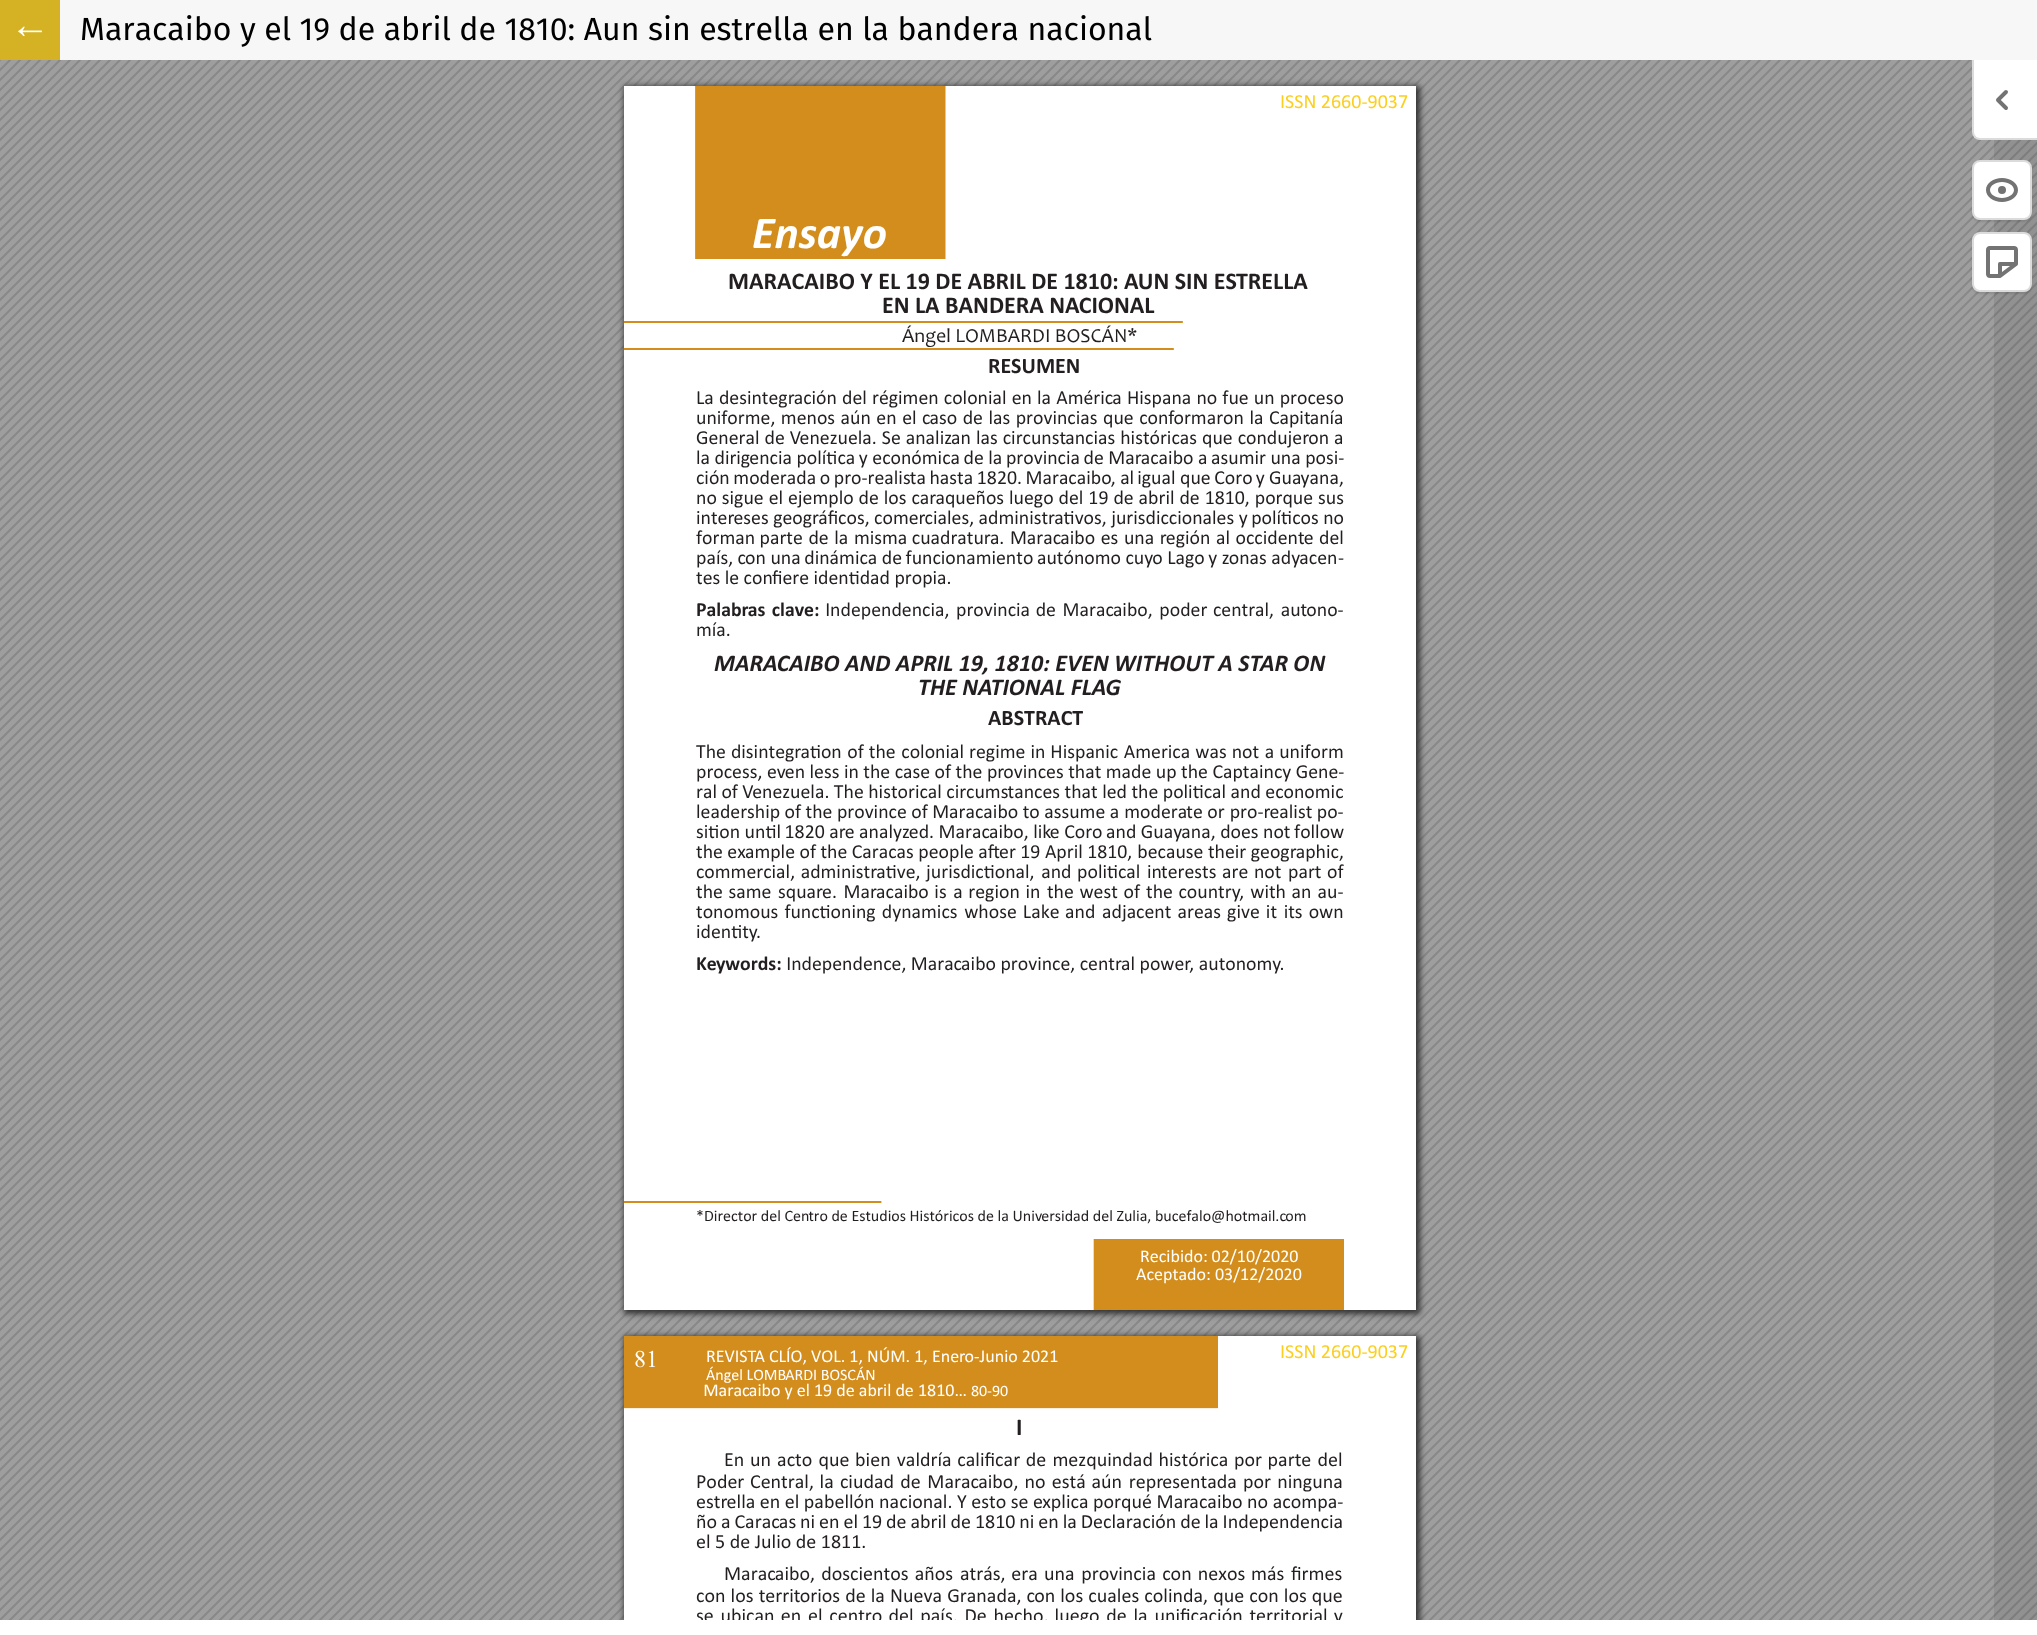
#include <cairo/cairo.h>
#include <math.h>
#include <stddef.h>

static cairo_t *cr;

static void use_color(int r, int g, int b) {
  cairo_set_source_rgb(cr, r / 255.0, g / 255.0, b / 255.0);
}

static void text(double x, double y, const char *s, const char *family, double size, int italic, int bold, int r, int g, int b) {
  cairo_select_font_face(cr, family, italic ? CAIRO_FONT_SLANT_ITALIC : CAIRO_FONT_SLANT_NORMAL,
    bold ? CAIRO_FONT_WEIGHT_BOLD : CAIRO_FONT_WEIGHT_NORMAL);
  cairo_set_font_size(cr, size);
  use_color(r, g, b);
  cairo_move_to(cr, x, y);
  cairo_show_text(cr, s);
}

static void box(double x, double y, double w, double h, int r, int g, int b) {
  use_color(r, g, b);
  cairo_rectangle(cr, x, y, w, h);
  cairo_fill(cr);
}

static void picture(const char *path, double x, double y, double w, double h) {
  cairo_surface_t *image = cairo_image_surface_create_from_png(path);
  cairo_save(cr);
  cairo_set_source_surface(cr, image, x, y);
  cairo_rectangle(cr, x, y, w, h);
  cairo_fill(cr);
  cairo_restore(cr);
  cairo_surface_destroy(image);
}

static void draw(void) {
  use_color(255, 255, 255);
  cairo_paint(cr);
  box(60, 0, 1977, 60, 247, 247, 247);
  box(0, 0, 60, 60, 212, 178, 35);
  picture("img_01.png", 0, 60, 2037, 1560);
  text(10, 38, "←", "Liberation Sans", 40, 0, 0, 255, 255, 255);
  text(80, 40, "Maracaibo y el 19 de abril de 1810: Aun sin estrella en la bandera nacional", "Fira Sans", 32, 0, 0, 0, 0, 0);
}

int main(void) {
  cairo_surface_t *surface = cairo_image_surface_create(CAIRO_FORMAT_RGB24, 2037, 1635);
  cr = cairo_create(surface);
  cairo_font_options_t *options = cairo_font_options_create();
  cairo_font_options_set_hint_metrics(options, CAIRO_HINT_METRICS_OFF);
  cairo_font_options_set_hint_style(options, CAIRO_HINT_STYLE_NONE);
  cairo_set_font_options(cr, options);
  cairo_set_miter_limit(cr, 4);
  draw();
  cairo_surface_write_to_png(surface, "out.png");
  cairo_font_options_destroy(options);
  cairo_destroy(cr);
  cairo_surface_destroy(surface);
  return 0;
}
